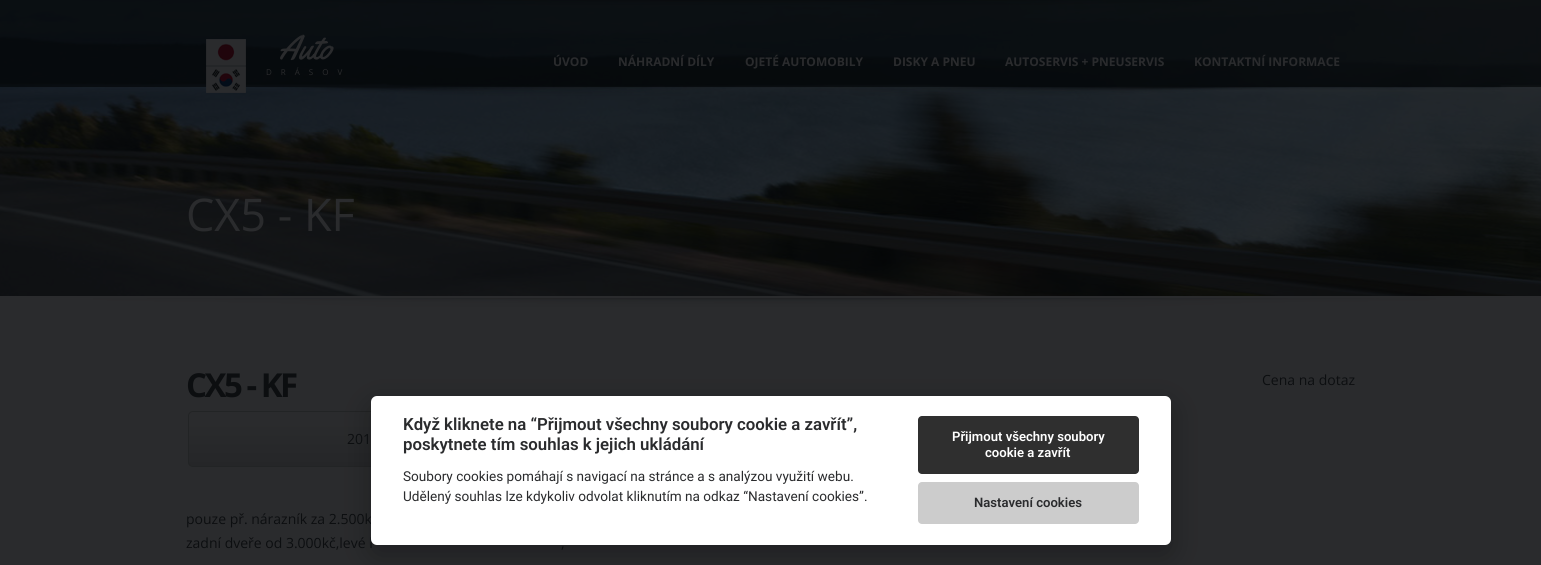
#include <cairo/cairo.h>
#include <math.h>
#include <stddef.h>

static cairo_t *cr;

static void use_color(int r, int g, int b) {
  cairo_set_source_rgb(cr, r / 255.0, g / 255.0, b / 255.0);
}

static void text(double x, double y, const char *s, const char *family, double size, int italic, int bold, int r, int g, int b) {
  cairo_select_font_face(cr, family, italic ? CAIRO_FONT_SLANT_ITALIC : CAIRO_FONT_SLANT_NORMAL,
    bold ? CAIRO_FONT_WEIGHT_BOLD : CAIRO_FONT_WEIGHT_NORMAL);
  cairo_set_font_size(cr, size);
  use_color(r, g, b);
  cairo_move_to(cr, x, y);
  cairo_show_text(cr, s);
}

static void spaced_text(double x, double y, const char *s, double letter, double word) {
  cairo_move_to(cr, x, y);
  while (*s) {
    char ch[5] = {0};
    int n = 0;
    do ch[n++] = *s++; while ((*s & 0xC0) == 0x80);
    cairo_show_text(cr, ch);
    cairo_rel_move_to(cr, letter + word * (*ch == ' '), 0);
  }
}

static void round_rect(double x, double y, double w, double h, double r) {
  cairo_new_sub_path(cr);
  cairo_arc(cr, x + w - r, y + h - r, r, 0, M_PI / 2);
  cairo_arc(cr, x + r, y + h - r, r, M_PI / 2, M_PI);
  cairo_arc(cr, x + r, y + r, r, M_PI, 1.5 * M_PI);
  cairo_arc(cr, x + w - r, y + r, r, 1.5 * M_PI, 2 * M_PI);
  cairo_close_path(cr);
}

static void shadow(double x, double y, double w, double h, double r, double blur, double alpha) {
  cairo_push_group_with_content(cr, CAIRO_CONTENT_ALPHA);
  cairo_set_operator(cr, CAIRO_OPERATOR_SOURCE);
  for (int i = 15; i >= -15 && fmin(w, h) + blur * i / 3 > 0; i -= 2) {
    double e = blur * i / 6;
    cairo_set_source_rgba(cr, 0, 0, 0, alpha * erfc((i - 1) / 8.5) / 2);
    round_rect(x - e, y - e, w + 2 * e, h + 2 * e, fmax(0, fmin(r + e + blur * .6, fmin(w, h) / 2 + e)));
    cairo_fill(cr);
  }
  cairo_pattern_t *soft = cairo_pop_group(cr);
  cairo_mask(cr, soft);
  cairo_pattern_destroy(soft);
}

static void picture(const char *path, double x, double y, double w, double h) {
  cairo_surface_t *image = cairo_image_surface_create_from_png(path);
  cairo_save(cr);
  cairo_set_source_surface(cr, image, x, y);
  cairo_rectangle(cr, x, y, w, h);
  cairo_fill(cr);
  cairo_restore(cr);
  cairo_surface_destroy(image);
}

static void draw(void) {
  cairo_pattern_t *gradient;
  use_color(42, 43, 45);
  cairo_paint(cr);
  picture("img_04.png", 0, 0, 1541, 296);
  cairo_set_source_rgba(cr, 0.012, 0.02, 0.027, 0.65);
  cairo_rectangle(cr, 0, 0, 1541, 87);
  cairo_fill(cr);
  picture("img_01.png", 320, 0, 892, 5);
  picture("img_02.png", 206, 39, 40, 54);
  picture("img_03.png", 255, 87, 1031, 9);
  picture("img_05.png", 93, 298, 1343, 9);
  cairo_save(cr);
  round_rect(188, 411, 388, 56, 5);
  cairo_clip(cr);
  gradient = cairo_pattern_create_linear(382, 412, 382, 466);
  cairo_pattern_add_color_stop_rgba(gradient, 0.19, 0.165, 0.169, 0.176, 1);
  cairo_pattern_add_color_stop_rgba(gradient, 1, 0.145, 0.149, 0.157, 1);
  cairo_set_source(cr, gradient);
  cairo_pattern_destroy(gradient);
  cairo_rectangle(cr, 188, 412, 183, 54);
  cairo_fill(cr);
  cairo_restore(cr);
  round_rect(188.5, 411.5, 387, 55, 4.5);
  use_color(34, 36, 37);
  cairo_set_line_width(cr, 1);
  cairo_stroke(cr);
  use_color(2, 2, 3);
  shadow(371, 406, 800, 149, 6, 15, 0.28);
  text(279, 59, "Auto", "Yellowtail", 34, 0, 0, 42, 43, 45);
  cairo_select_font_face(cr, "Open Sans", CAIRO_FONT_SLANT_NORMAL, CAIRO_FONT_WEIGHT_NORMAL);
  cairo_set_font_size(cr, 8);
  spaced_text(266, 75, "DRÁSOV", 9, 0);
  text(553, 66, "ÚVOD", "Open Sans", 12, 0, 1, 42, 43, 45);
  text(618, 66, "NÁHRADNÍ DÍLY", "Open Sans", 12, 0, 1, 42, 43, 45);
  text(745, 66, "OJETÉ AUTOMOBILY", "Open Sans", 12, 0, 1, 42, 43, 45);
  text(893, 66, "DISKY A PNEU", "Open Sans", 12, 0, 1, 42, 43, 45);
  text(1005, 66, "AUTOSERVIS + PNEUSERVIS", "Open Sans", 12, 0, 1, 42, 43, 45);
  text(1194, 66, "KONTAKTNÍ INFORMACE", "Open Sans", 12, 0, 1, 42, 43, 45);
  text(186, 231, "CX5 - KF", "Open Sans", 45, 0, 0, 42, 43, 45);
  cairo_select_font_face(cr, "Open Sans", CAIRO_FONT_SLANT_NORMAL, CAIRO_FONT_WEIGHT_BOLD);
  cairo_set_font_size(cr, 33);
  use_color(12, 14, 16);
  spaced_text(186, 397, "CX5 - KF", -2.5, 0);
  text(1262, 385, "Cena na dotaz", "Open Sans", 14, 0, 0, 12, 14, 16);
  text(347, 444, "201", "Open Sans", 14, 0, 0, 12, 14, 16);
  text(186, 524, "pouze př. nárazník za 2.500k", "Open Sans", 14, 0, 0, 12, 14, 16);
  text(186, 548, "zadní dveře od 3.000kč,levé l", "Open Sans", 14, 0, 0, 12, 14, 16);
  text(561, 548, ",", "Open Sans", 14, 0, 0, 12, 14, 16);
  use_color(255, 255, 255);
  round_rect(371, 396, 800, 149, 6);
  cairo_fill(cr);
  text(403, 430, "Když kliknete na “Přijmout všechny soubory cookie a zavřít”,", "Roboto SemiBold", 16.8, 0, 0, 42, 43, 45);
  text(403, 450, "poskytnete tím souhlas k jejich ukládání", "Roboto SemiBold", 16.8, 0, 0, 42, 43, 45);
  text(403, 481, "Soubory cookies pomáhají s navigací na stránce a s analýzou využití webu.", "Roboto", 13.6, 0, 0, 42, 43, 45);
  text(403, 501, "Udělený souhlas lze kdykoliv odvolat kliknutím na odkaz “Nastavení cookies”.", "Roboto", 13.6, 0, 0, 42, 43, 45);
  use_color(47, 47, 47);
  round_rect(918, 416, 221, 58, 4);
  cairo_fill(cr);
  text(952, 441, "Přijmout všechny soubory", "Roboto SemiBold", 13.1, 0, 0, 255, 255, 255);
  text(985, 457, "cookie a zavřít", "Roboto SemiBold", 13.1, 0, 0, 255, 255, 255);
  use_color(204, 204, 204);
  round_rect(918, 482, 221, 42, 4);
  cairo_fill(cr);
  text(974, 507, "Nastavení cookies", "Roboto SemiBold", 13.1, 0, 0, 42, 43, 45);
}

int main(void) {
  cairo_surface_t *surface = cairo_image_surface_create(CAIRO_FORMAT_RGB24, 1541, 565);
  cr = cairo_create(surface);
  cairo_font_options_t *options = cairo_font_options_create();
  cairo_font_options_set_hint_metrics(options, CAIRO_HINT_METRICS_OFF);
  cairo_font_options_set_hint_style(options, CAIRO_HINT_STYLE_NONE);
  cairo_set_font_options(cr, options);
  cairo_set_miter_limit(cr, 4);
  draw();
  cairo_surface_write_to_png(surface, "out.png");
  cairo_font_options_destroy(options);
  cairo_destroy(cr);
  cairo_surface_destroy(surface);
  return 0;
}
